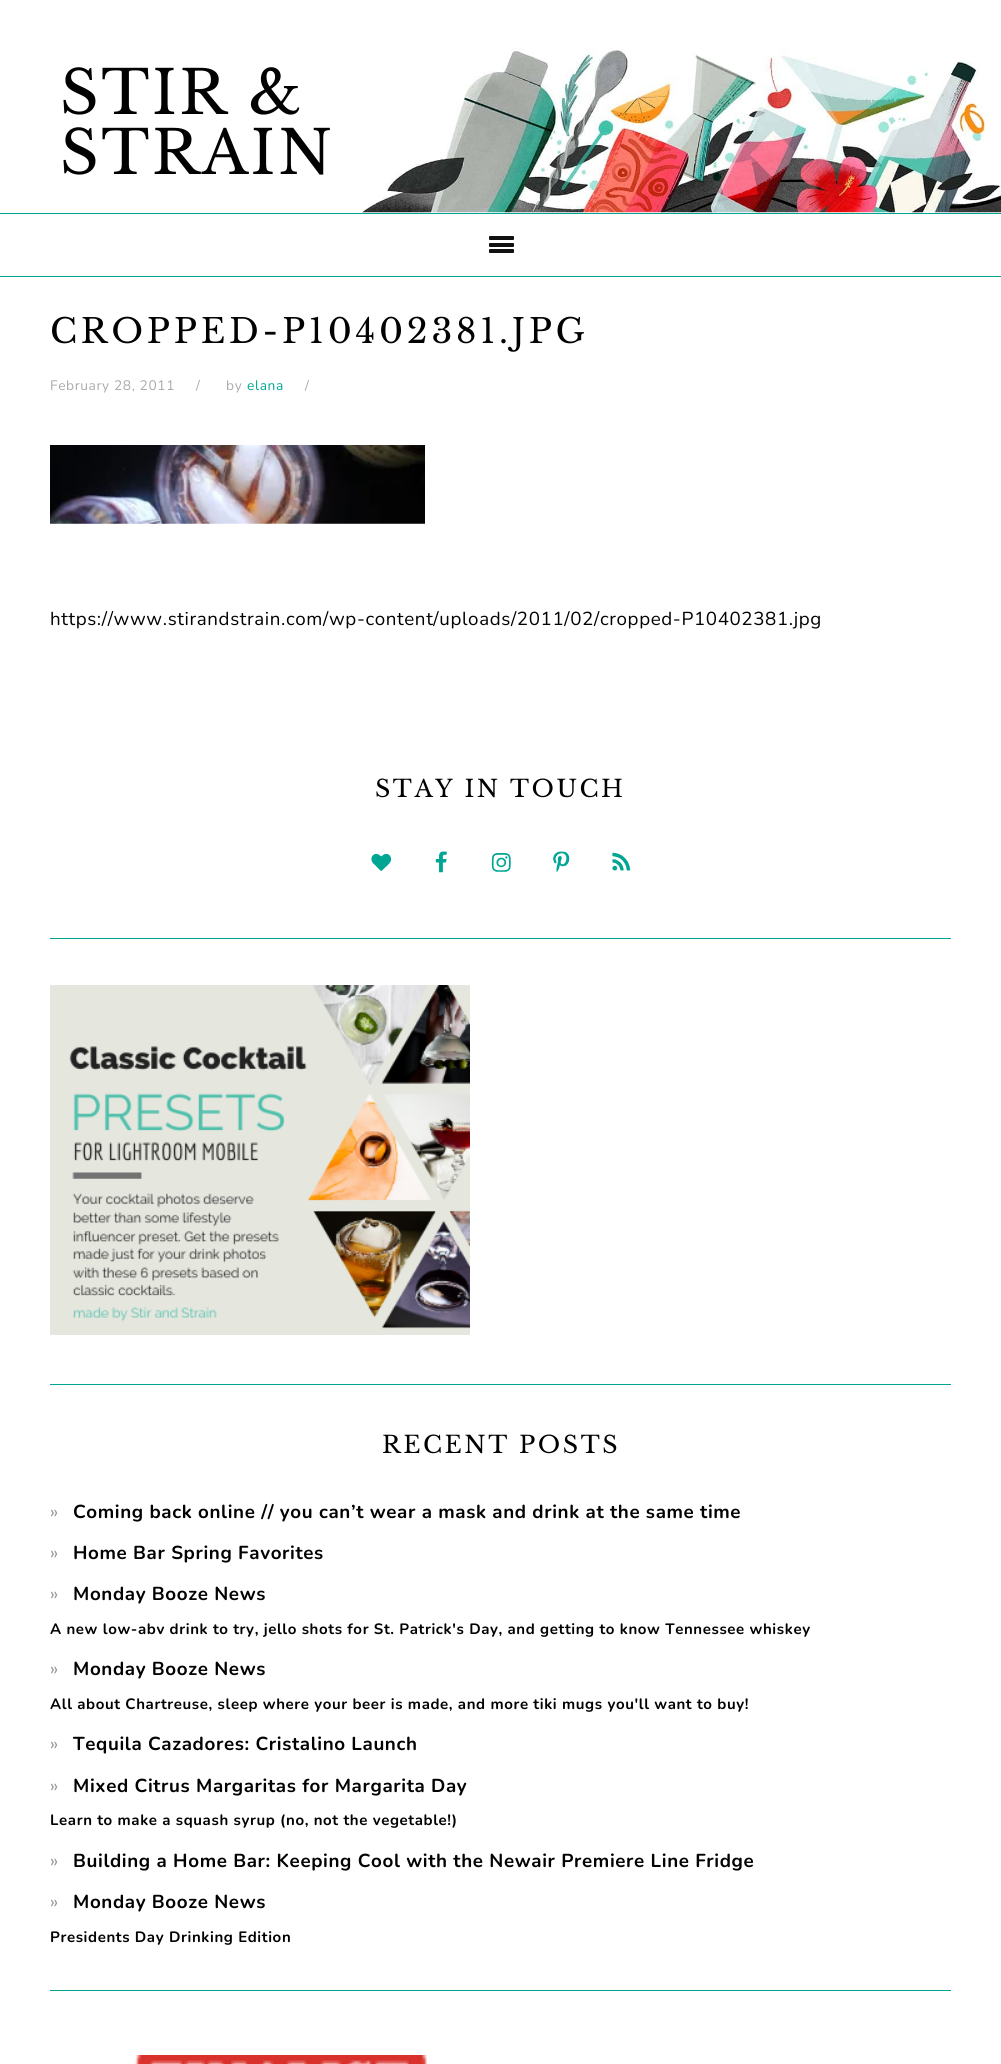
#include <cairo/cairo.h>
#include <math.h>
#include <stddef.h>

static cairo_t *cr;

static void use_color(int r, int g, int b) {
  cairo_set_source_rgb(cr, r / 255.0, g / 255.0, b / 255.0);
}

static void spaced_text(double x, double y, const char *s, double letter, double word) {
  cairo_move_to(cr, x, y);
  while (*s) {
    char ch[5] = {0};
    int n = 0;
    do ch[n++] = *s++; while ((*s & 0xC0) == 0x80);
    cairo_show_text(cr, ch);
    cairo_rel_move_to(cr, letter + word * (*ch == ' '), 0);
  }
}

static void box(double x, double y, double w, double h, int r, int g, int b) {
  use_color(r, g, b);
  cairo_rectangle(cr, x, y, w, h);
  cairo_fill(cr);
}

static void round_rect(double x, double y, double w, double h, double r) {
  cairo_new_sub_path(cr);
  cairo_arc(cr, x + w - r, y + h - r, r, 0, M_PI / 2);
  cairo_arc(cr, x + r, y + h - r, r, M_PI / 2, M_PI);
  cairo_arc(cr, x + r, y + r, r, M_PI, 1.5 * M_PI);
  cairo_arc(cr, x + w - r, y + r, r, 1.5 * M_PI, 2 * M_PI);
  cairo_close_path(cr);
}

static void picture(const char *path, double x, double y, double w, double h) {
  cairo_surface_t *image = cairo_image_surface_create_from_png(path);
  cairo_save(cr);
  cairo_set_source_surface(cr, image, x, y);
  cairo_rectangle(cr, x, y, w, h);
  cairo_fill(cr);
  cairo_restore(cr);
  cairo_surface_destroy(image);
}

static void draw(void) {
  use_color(255, 255, 255);
  cairo_paint(cr);
  picture("img_01.png", 362, 48, 639, 165);
  box(0, 213, 1001, 1, 0, 165, 148);
  box(0, 276, 1001, 1, 0, 165, 148);
  use_color(16, 16, 16);
  round_rect(489, 243, 25, 4, 1);
  cairo_fill(cr);
  round_rect(489, 236, 25, 4, 1);
  cairo_fill(cr);
  round_rect(489, 249, 25, 4, 1);
  cairo_fill(cr);
  picture("img_02.png", 50, 445, 375, 79);
  box(50, 938, 901, 1, 0, 165, 148);
  picture("img_03.png", 371, 854, 21, 17);
  picture("img_04.png", 435, 851, 12, 22);
  picture("img_05.png", 491, 853, 20, 19);
  picture("img_06.png", 553, 851, 17, 22);
  picture("img_07.png", 612, 852, 19, 19);
  box(50, 1384, 901, 1, 0, 165, 148);
  picture("img_08.png", 50, 985, 420, 350);
  box(50, 1990, 901, 1, 0, 165, 148);
  picture("img_09.png", 134, 2055, 293, 9);
  cairo_select_font_face(cr, "Libre Baskerville", CAIRO_FONT_SLANT_NORMAL, CAIRO_FONT_WEIGHT_NORMAL);
  cairo_set_font_size(cr, 60);
  use_color(1, 1, 1);
  spaced_text(60, 114, "STIR &", 2.5, 0);
  spaced_text(60, 174, "STRAIN", 2.5, 0);
  cairo_set_font_size(cr, 33.75);
  spaced_text(50, 343, "CROPPED-P10402381.JPG", 3.75, 0);
  cairo_select_font_face(cr, "Nunito", CAIRO_FONT_SLANT_NORMAL, CAIRO_FONT_WEIGHT_NORMAL);
  cairo_set_font_size(cr, 13.75);
  use_color(170, 170, 170);
  spaced_text(50, 390, "February 28, 2011", 0.62, 0);
  spaced_text(196, 390, "/", 0.62, 0);
  spaced_text(226, 390, "by", 0.62, 0);
  use_color(0, 165, 148);
  spaced_text(247, 390, "elana", 0.62, 0);
  use_color(170, 170, 170);
  spaced_text(305, 390, "/", 0.62, 0);
  cairo_set_font_size(cr, 18.75);
  use_color(1, 1, 1);
  spaced_text(50, 625, "https://www.stirandstrain.com/wp-content/uploads/2011/02/cropped-P10402381.jpg", 0.62, 0);
  cairo_select_font_face(cr, "Libre Baskerville", CAIRO_FONT_SLANT_NORMAL, CAIRO_FONT_WEIGHT_NORMAL);
  cairo_set_font_size(cr, 23.75);
  spaced_text(375, 797, "STAY IN TOUCH", 2.5, 0);
  spaced_text(382, 1453, "RECENT POSTS", 2.5, 0);
  cairo_select_font_face(cr, "Nunito", CAIRO_FONT_SLANT_NORMAL, CAIRO_FONT_WEIGHT_NORMAL);
  cairo_set_font_size(cr, 18.75);
  use_color(153, 153, 153);
  spaced_text(50, 1518, "»", 0.62, 0);
  cairo_select_font_face(cr, "Nunito", CAIRO_FONT_SLANT_NORMAL, CAIRO_FONT_WEIGHT_BOLD);
  use_color(1, 1, 1);
  spaced_text(73, 1518, "Coming back online // you can’t wear a mask and drink at the same time", 0.62, 0);
  cairo_select_font_face(cr, "Nunito", CAIRO_FONT_SLANT_NORMAL, CAIRO_FONT_WEIGHT_NORMAL);
  use_color(153, 153, 153);
  spaced_text(50, 1559, "»", 0.62, 0);
  cairo_select_font_face(cr, "Nunito", CAIRO_FONT_SLANT_NORMAL, CAIRO_FONT_WEIGHT_BOLD);
  use_color(1, 1, 1);
  spaced_text(73, 1559, "Home Bar Spring Favorites", 0.62, 0);
  cairo_select_font_face(cr, "Nunito", CAIRO_FONT_SLANT_NORMAL, CAIRO_FONT_WEIGHT_NORMAL);
  use_color(153, 153, 153);
  spaced_text(50, 1600, "»", 0.62, 0);
  cairo_select_font_face(cr, "Nunito", CAIRO_FONT_SLANT_NORMAL, CAIRO_FONT_WEIGHT_BOLD);
  use_color(1, 1, 1);
  spaced_text(73, 1600, "Monday Booze News", 0.62, 0);
  cairo_set_font_size(cr, 15);
  spaced_text(50, 1634, "A new low-abv drink to try, jello shots for St. Patrick's Day, and getting to know Tennessee whiskey", 0.62, 0);
  cairo_select_font_face(cr, "Nunito", CAIRO_FONT_SLANT_NORMAL, CAIRO_FONT_WEIGHT_NORMAL);
  cairo_set_font_size(cr, 18.75);
  use_color(153, 153, 153);
  spaced_text(50, 1675, "»", 0.62, 0);
  cairo_select_font_face(cr, "Nunito", CAIRO_FONT_SLANT_NORMAL, CAIRO_FONT_WEIGHT_BOLD);
  use_color(1, 1, 1);
  spaced_text(73, 1675, "Monday Booze News", 0.62, 0);
  cairo_set_font_size(cr, 15);
  spaced_text(50, 1709, "All about Chartreuse, sleep where your beer is made, and more tiki mugs you'll want to buy!", 0.62, 0);
  cairo_select_font_face(cr, "Nunito", CAIRO_FONT_SLANT_NORMAL, CAIRO_FONT_WEIGHT_NORMAL);
  cairo_set_font_size(cr, 18.75);
  use_color(153, 153, 153);
  spaced_text(50, 1750, "»", 0.62, 0);
  cairo_select_font_face(cr, "Nunito", CAIRO_FONT_SLANT_NORMAL, CAIRO_FONT_WEIGHT_BOLD);
  use_color(1, 1, 1);
  spaced_text(73, 1750, "Tequila Cazadores: Cristalino Launch", 0.62, 0);
  cairo_select_font_face(cr, "Nunito", CAIRO_FONT_SLANT_NORMAL, CAIRO_FONT_WEIGHT_NORMAL);
  use_color(153, 153, 153);
  spaced_text(50, 1792, "»", 0.62, 0);
  cairo_select_font_face(cr, "Nunito", CAIRO_FONT_SLANT_NORMAL, CAIRO_FONT_WEIGHT_BOLD);
  use_color(1, 1, 1);
  spaced_text(73, 1792, "Mixed Citrus Margaritas for Margarita Day", 0.62, 0);
  cairo_set_font_size(cr, 15);
  spaced_text(50, 1825, "Learn to make a squash syrup (no, not the vegetable!)", 0.62, 0);
  cairo_select_font_face(cr, "Nunito", CAIRO_FONT_SLANT_NORMAL, CAIRO_FONT_WEIGHT_NORMAL);
  cairo_set_font_size(cr, 18.75);
  use_color(153, 153, 153);
  spaced_text(50, 1867, "»", 0.62, 0);
  cairo_select_font_face(cr, "Nunito", CAIRO_FONT_SLANT_NORMAL, CAIRO_FONT_WEIGHT_BOLD);
  use_color(1, 1, 1);
  spaced_text(73, 1867, "Building a Home Bar: Keeping Cool with the Newair Premiere Line Fridge", 0.62, 0);
  cairo_select_font_face(cr, "Nunito", CAIRO_FONT_SLANT_NORMAL, CAIRO_FONT_WEIGHT_NORMAL);
  use_color(153, 153, 153);
  spaced_text(50, 1908, "»", 0.62, 0);
  cairo_select_font_face(cr, "Nunito", CAIRO_FONT_SLANT_NORMAL, CAIRO_FONT_WEIGHT_BOLD);
  use_color(1, 1, 1);
  spaced_text(73, 1908, "Monday Booze News", 0.62, 0);
  cairo_set_font_size(cr, 15);
  spaced_text(50, 1942, "Presidents Day Drinking Edition", 0.62, 0);
}

int main(void) {
  cairo_surface_t *surface = cairo_image_surface_create(CAIRO_FORMAT_RGB24, 1001, 2064);
  cr = cairo_create(surface);
  cairo_font_options_t *options = cairo_font_options_create();
  cairo_font_options_set_hint_metrics(options, CAIRO_HINT_METRICS_OFF);
  cairo_font_options_set_hint_style(options, CAIRO_HINT_STYLE_NONE);
  cairo_set_font_options(cr, options);
  cairo_set_miter_limit(cr, 4);
  draw();
  cairo_surface_write_to_png(surface, "out.png");
  cairo_font_options_destroy(options);
  cairo_destroy(cr);
  cairo_surface_destroy(surface);
  return 0;
}
